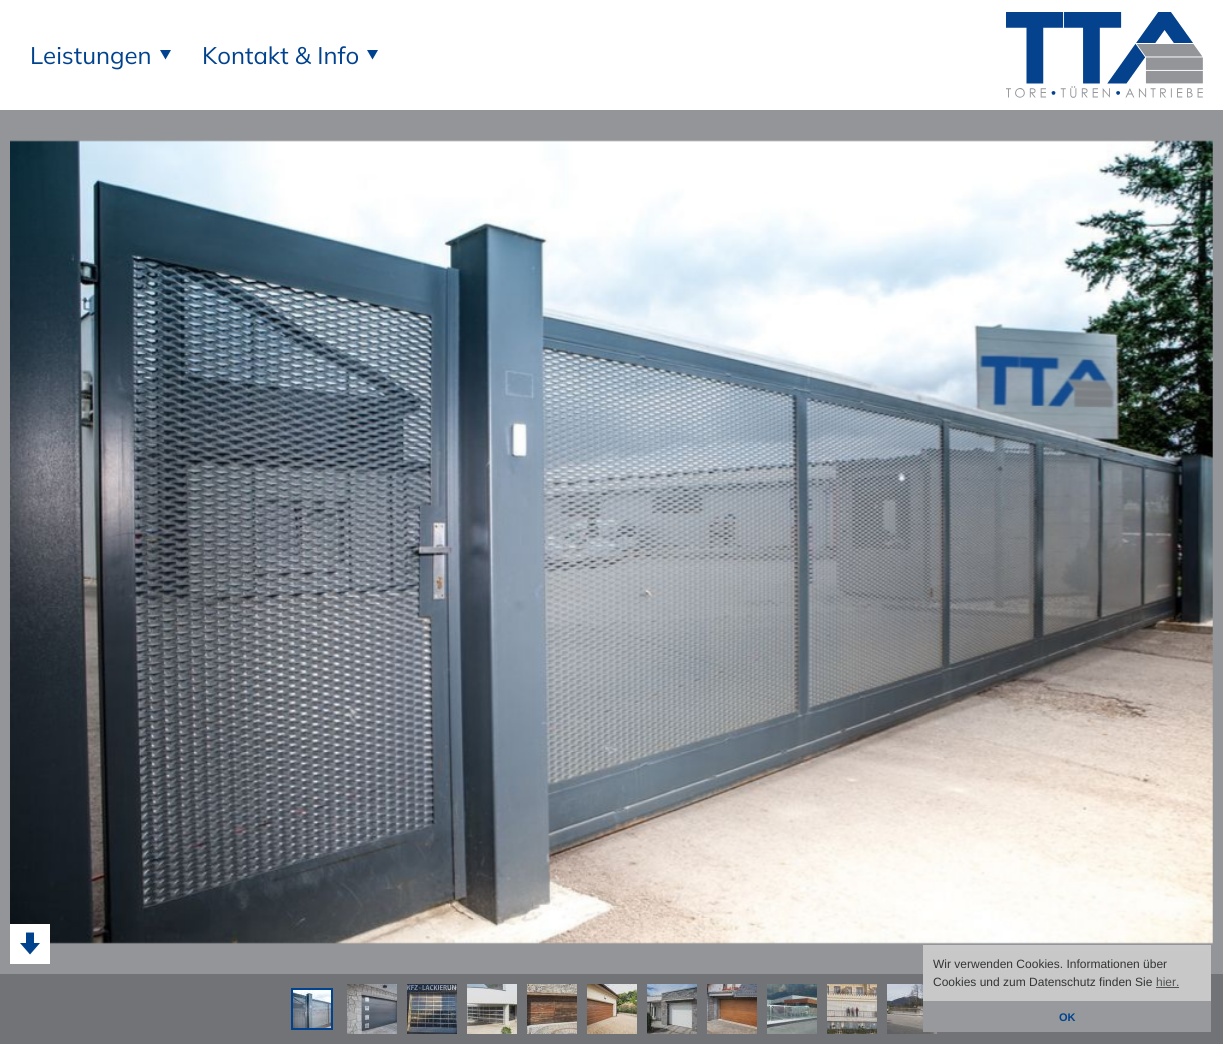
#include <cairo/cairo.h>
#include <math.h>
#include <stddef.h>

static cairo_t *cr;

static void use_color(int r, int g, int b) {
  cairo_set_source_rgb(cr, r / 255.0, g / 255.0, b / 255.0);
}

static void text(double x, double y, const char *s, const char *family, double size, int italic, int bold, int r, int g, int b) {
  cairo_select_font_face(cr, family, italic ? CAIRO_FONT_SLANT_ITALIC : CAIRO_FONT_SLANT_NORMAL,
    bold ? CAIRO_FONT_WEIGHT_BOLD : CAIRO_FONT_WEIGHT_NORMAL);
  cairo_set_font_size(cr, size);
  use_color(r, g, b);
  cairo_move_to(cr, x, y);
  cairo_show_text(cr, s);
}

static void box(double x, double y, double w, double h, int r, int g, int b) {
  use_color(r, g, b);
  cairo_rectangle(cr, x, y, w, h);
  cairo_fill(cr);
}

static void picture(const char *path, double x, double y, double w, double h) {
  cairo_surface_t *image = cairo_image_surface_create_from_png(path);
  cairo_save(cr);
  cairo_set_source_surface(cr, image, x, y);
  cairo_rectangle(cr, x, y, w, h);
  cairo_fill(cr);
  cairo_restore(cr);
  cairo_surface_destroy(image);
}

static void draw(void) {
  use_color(147, 149, 152);
  cairo_paint(cr);
  box(0, 0, 1223, 110, 255, 255, 255);
  use_color(1, 66, 142);
  cairo_new_path(cr);
  cairo_move_to(cr, 171, 50);
  cairo_line_to(cr, 165.5, 59.5);
  cairo_line_to(cr, 160, 50);
  cairo_close_path(cr);
  cairo_fill(cr);
  cairo_new_path(cr);
  cairo_move_to(cr, 378, 50);
  cairo_line_to(cr, 372.5, 59.5);
  cairo_line_to(cr, 367, 50);
  cairo_close_path(cr);
  cairo_fill(cr);
  picture("img_01.png", 1006, 12, 197, 86);
  picture("img_02.png", 10, 140, 1203, 804);
  box(10, 924, 40, 40, 255, 255, 255);
  use_color(1, 66, 142);
  cairo_new_path(cr);
  cairo_move_to(cr, 40, 943);
  cairo_line_to(cr, 30, 954.5);
  cairo_line_to(cr, 20, 943);
  cairo_line_to(cr, 26, 943);
  cairo_line_to(cr, 26, 932.5);
  cairo_line_to(cr, 34, 932.5);
  cairo_line_to(cr, 34, 943);
  cairo_close_path(cr);
  cairo_fill(cr);
  box(0, 974, 1223, 70, 113, 115, 118);
  picture("img_03.png", 293, 990, 38, 38);
  cairo_rectangle(cr, 292, 989, 40, 40);
  use_color(1, 66, 142);
  cairo_stroke(cr);
  picture("img_04.png", 347, 984, 50, 50);
  picture("img_05.png", 407, 984, 50, 50);
  picture("img_06.png", 467, 984, 50, 50);
  picture("img_07.png", 527, 984, 50, 50);
  picture("img_08.png", 587, 984, 50, 50);
  picture("img_09.png", 647, 984, 50, 50);
  picture("img_10.png", 707, 984, 50, 50);
  picture("img_11.png", 767, 984, 50, 50);
  picture("img_12.png", 827, 984, 50, 50);
  picture("img_13.png", 887, 984, 50, 50);
  box(923, 945, 288, 56, 200, 200, 200);
  box(1156, 987, 23, 1, 81, 82, 82);
  box(923, 1001, 288, 31, 151, 153, 156);
  text(30, 64, "Leistungen", "Mulish ExtraLight", 24, 0, 0, 1, 66, 142);
  text(202, 64, "Kontakt & Info", "Mulish ExtraLight", 24, 0, 0, 1, 66, 142);
  text(933, 968, "Wir verwenden Cookies. Informationen über", "Liberation Sans", 12, 0, 0, 51, 52, 53);
  text(933, 986, "Cookies und zum Datenschutz finden Sie", "Liberation Sans", 12, 0, 0, 51, 52, 53);
  text(1156, 986, "hier.", "Liberation Sans", 12, 0, 0, 81, 82, 82);
  text(1059, 1021, "OK", "Liberation Sans", 11, 0, 1, 1, 66, 142);
}

int main(void) {
  cairo_surface_t *surface = cairo_image_surface_create(CAIRO_FORMAT_RGB24, 1223, 1044);
  cr = cairo_create(surface);
  cairo_font_options_t *options = cairo_font_options_create();
  cairo_font_options_set_hint_metrics(options, CAIRO_HINT_METRICS_OFF);
  cairo_font_options_set_hint_style(options, CAIRO_HINT_STYLE_NONE);
  cairo_set_font_options(cr, options);
  cairo_set_miter_limit(cr, 4);
  draw();
  cairo_surface_write_to_png(surface, "out.png");
  cairo_font_options_destroy(options);
  cairo_destroy(cr);
  cairo_surface_destroy(surface);
  return 0;
}
